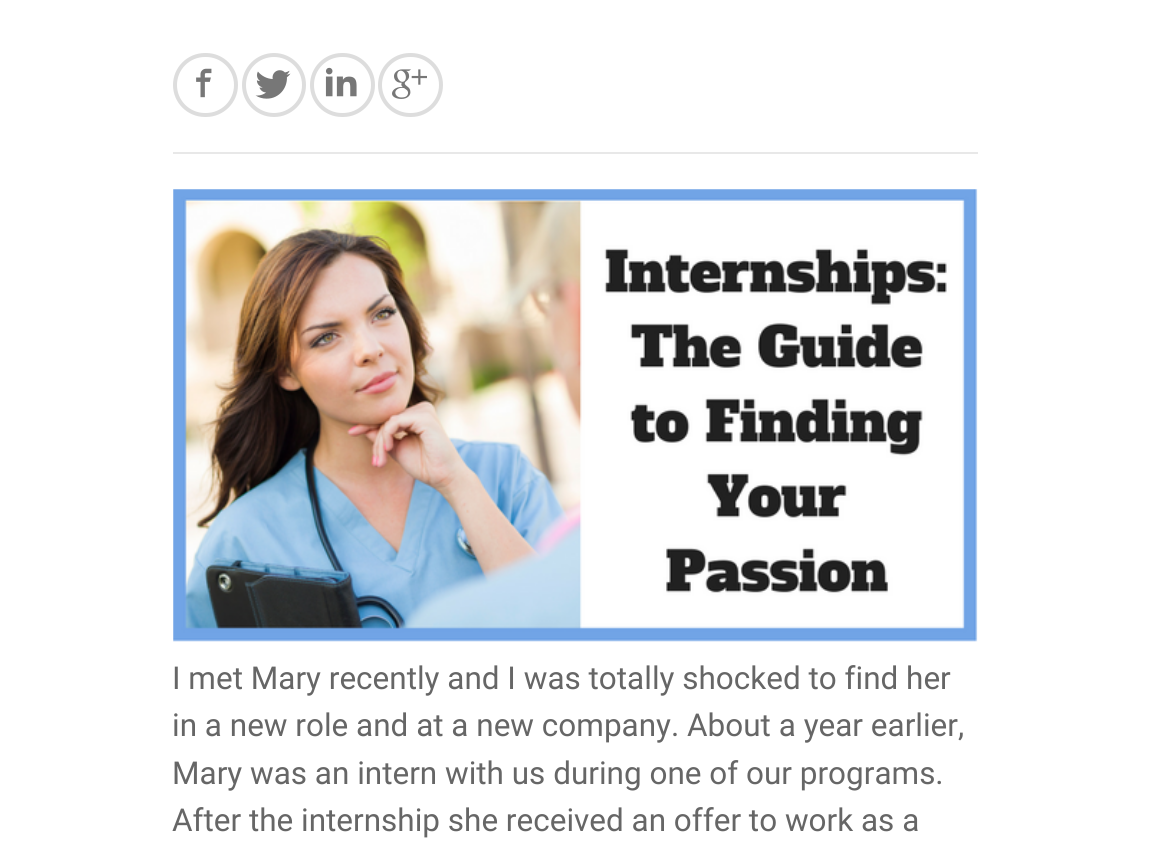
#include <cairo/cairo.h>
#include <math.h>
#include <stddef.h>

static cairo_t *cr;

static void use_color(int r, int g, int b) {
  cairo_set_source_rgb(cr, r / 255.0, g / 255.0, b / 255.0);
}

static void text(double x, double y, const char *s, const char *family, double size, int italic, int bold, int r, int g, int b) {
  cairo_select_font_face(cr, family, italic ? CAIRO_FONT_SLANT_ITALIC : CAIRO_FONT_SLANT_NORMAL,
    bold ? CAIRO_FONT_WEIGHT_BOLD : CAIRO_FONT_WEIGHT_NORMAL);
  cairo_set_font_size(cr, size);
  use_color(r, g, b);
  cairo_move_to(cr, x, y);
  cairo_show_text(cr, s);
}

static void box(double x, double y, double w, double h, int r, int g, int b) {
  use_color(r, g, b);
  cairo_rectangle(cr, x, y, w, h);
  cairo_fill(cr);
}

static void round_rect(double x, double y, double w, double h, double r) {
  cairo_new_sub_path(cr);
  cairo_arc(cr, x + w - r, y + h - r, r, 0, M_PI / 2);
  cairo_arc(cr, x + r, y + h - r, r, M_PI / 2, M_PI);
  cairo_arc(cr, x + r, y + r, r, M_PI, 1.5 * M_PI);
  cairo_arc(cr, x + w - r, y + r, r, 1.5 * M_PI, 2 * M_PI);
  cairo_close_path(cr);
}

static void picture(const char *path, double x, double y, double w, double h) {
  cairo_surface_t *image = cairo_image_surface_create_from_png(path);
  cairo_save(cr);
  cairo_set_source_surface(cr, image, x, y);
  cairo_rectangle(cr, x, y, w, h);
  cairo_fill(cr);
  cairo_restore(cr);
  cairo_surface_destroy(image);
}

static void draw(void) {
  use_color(255, 255, 255);
  cairo_paint(cr);
  box(173, 152, 805, 2, 232, 232, 232);
  round_rect(175, 55, 61, 60, 30);
  use_color(221, 221, 221);
  cairo_set_line_width(cr, 4);
  cairo_stroke(cr);
  cairo_arc(cr, 274, 85, 30, 0, 2 * M_PI);
  cairo_stroke(cr);
  picture("img_01.png", 255, 70, 36, 29);
  round_rect(312, 55, 61, 60, 30);
  cairo_stroke(cr);
  picture("img_02.png", 325, 67, 32, 30);
  round_rect(380, 55, 61, 60, 30);
  cairo_stroke(cr);
  picture("img_03.png", 173, 189, 805, 453);
  text(183, 95, "=", "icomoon", 35, 0, 0, 119, 119, 119);
  text(392, 100, "-", "icomoon", 35, 0, 0, 119, 119, 119);
  text(172, 689, "I met Mary recently and I was totally shocked to find her", "Roboto", 31.5, 0, 0, 102, 102, 102);
  text(172, 736, "in a new role and at a new company. About a year earlier,", "Roboto", 31.5, 0, 0, 102, 102, 102);
  text(172, 784, "Mary was an intern with us during one of our programs.", "Roboto", 31.5, 0, 0, 102, 102, 102);
  text(172, 831, "After the internship she received an offer to work as a", "Roboto", 31.5, 0, 0, 102, 102, 102);
}

int main(void) {
  cairo_surface_t *surface = cairo_image_surface_create(CAIRO_FORMAT_RGB24, 1149, 844);
  cr = cairo_create(surface);
  cairo_font_options_t *options = cairo_font_options_create();
  cairo_font_options_set_hint_metrics(options, CAIRO_HINT_METRICS_OFF);
  cairo_font_options_set_hint_style(options, CAIRO_HINT_STYLE_NONE);
  cairo_set_font_options(cr, options);
  cairo_set_miter_limit(cr, 4);
  draw();
  cairo_surface_write_to_png(surface, "out.png");
  cairo_font_options_destroy(options);
  cairo_destroy(cr);
  cairo_surface_destroy(surface);
  return 0;
}
